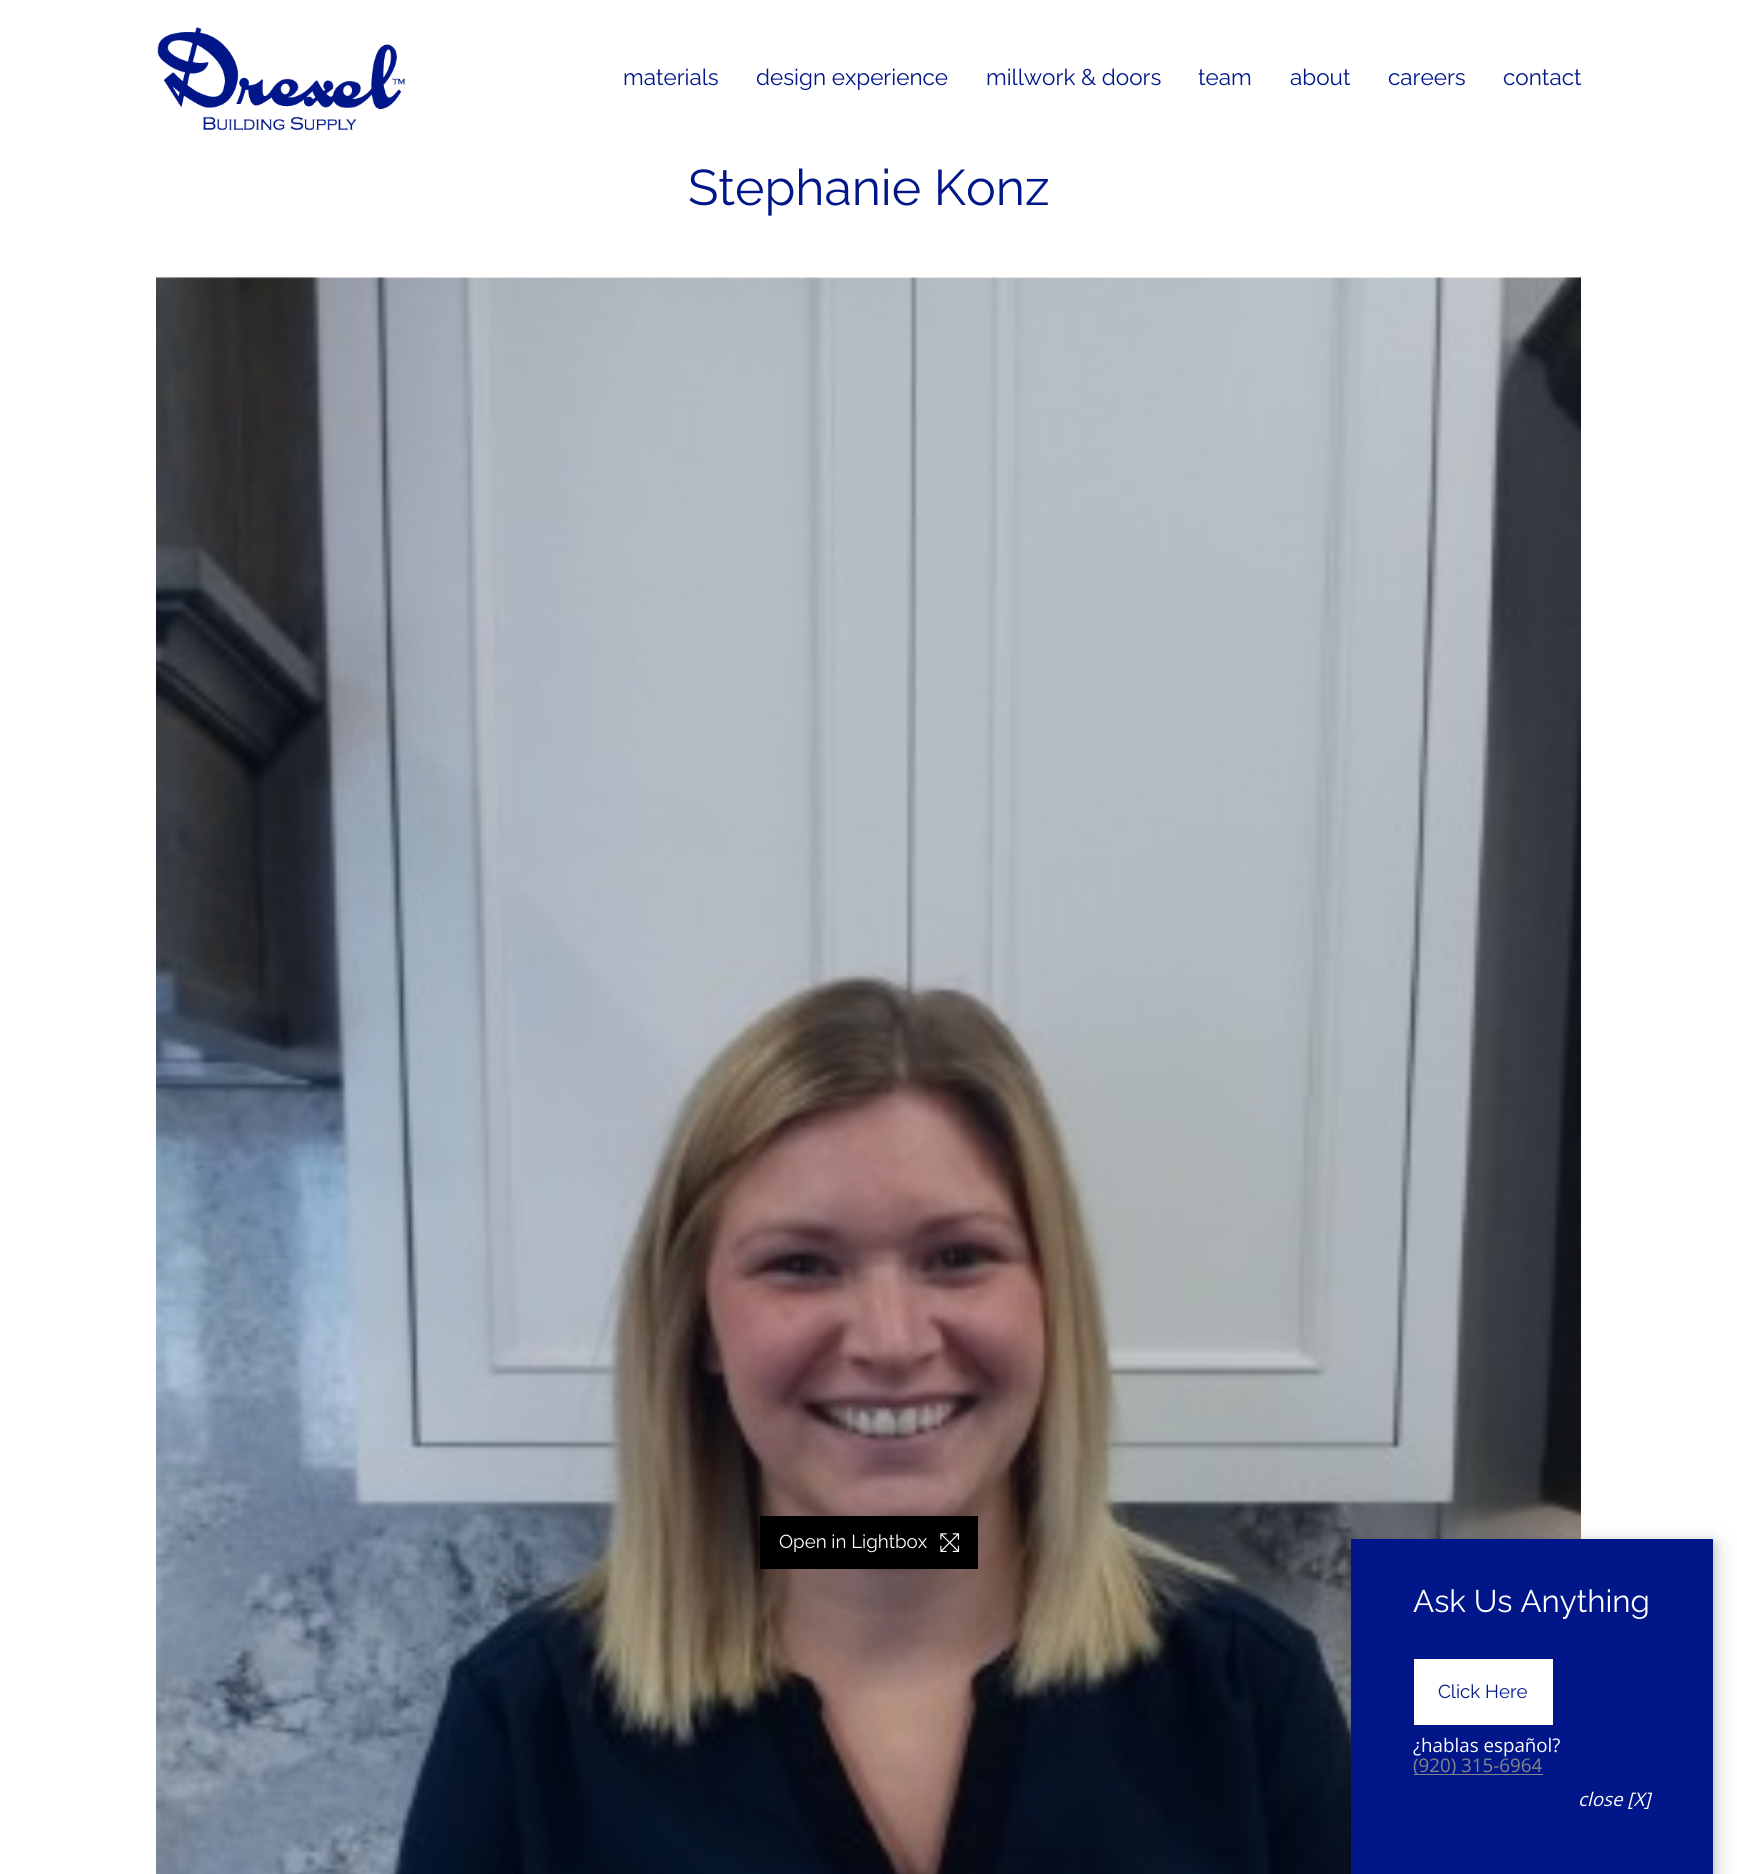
#include <cairo/cairo.h>
#include <math.h>
#include <stddef.h>

static cairo_t *cr;

static void use_color(int r, int g, int b) {
  cairo_set_source_rgb(cr, r / 255.0, g / 255.0, b / 255.0);
}

static void text(double x, double y, const char *s, const char *family, double size, int italic, int bold, int r, int g, int b) {
  cairo_select_font_face(cr, family, italic ? CAIRO_FONT_SLANT_ITALIC : CAIRO_FONT_SLANT_NORMAL,
    bold ? CAIRO_FONT_WEIGHT_BOLD : CAIRO_FONT_WEIGHT_NORMAL);
  cairo_set_font_size(cr, size);
  use_color(r, g, b);
  cairo_move_to(cr, x, y);
  cairo_show_text(cr, s);
}

static void box(double x, double y, double w, double h, int r, int g, int b) {
  use_color(r, g, b);
  cairo_rectangle(cr, x, y, w, h);
  cairo_fill(cr);
}

static void round_rect(double x, double y, double w, double h, double r) {
  cairo_new_sub_path(cr);
  cairo_arc(cr, x + w - r, y + h - r, r, 0, M_PI / 2);
  cairo_arc(cr, x + r, y + h - r, r, M_PI / 2, M_PI);
  cairo_arc(cr, x + r, y + r, r, M_PI, 1.5 * M_PI);
  cairo_arc(cr, x + w - r, y + r, r, 1.5 * M_PI, 2 * M_PI);
  cairo_close_path(cr);
}

static void shadow(double x, double y, double w, double h, double r, double blur, double alpha) {
  cairo_push_group_with_content(cr, CAIRO_CONTENT_ALPHA);
  cairo_set_operator(cr, CAIRO_OPERATOR_SOURCE);
  for (int i = 15; i >= -15 && fmin(w, h) + blur * i / 3 > 0; i -= 2) {
    double e = blur * i / 6;
    cairo_set_source_rgba(cr, 0, 0, 0, alpha * erfc((i - 1) / 8.5) / 2);
    round_rect(x - e, y - e, w + 2 * e, h + 2 * e, fmax(0, fmin(r + e + blur * .6, fmin(w, h) / 2 + e)));
    cairo_fill(cr);
  }
  cairo_pattern_t *soft = cairo_pop_group(cr);
  cairo_mask(cr, soft);
  cairo_pattern_destroy(soft);
}

static void picture(const char *path, double x, double y, double w, double h) {
  cairo_surface_t *image = cairo_image_surface_create_from_png(path);
  cairo_save(cr);
  cairo_set_source_surface(cr, image, x, y);
  cairo_rectangle(cr, x, y, w, h);
  cairo_fill(cr);
  cairo_restore(cr);
  cairo_surface_destroy(image);
}

static void draw(void) {
  use_color(255, 255, 255);
  cairo_paint(cr);
  picture("img_01.png", 157, 27, 248, 104);
  picture("img_02.png", 156, 277, 1425, 1597);
  box(760, 1516, 218, 53, 0, 0, 0);
  picture("img_03.png", 940, 1533, 20, 19);
  use_color(0, 0, 0);
  shadow(1351, 1546, 362, 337, 0, 12.5, 0.19);
  shadow(1351, 1544, 362, 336, 0, 5, 0.2);
  box(1351, 1539, 362, 335, 0, 22, 137);
  box(1414, 1659, 139, 66, 255, 255, 255);
  box(1414, 1774, 129, 1, 131, 133, 136);
  text(623, 85, "materials", "Raleway Thin", 22.5, 0, 0, 0, 22, 137);
  text(756, 85, "design experience", "Raleway Thin", 22.5, 0, 0, 0, 22, 137);
  text(986, 85, "millwork & doors", "Raleway Thin", 22.5, 0, 0, 0, 22, 137);
  text(1198, 85, "team", "Raleway Thin", 22.5, 0, 0, 0, 22, 137);
  text(1290, 85, "about", "Raleway Thin", 22.5, 0, 0, 0, 22, 137);
  text(1388, 85, "careers", "Raleway Thin", 22.5, 0, 0, 0, 22, 137);
  text(1503, 85, "contact", "Raleway Thin", 22.5, 0, 0, 0, 22, 137);
  text(688, 205, "Stephanie Konz", "Raleway Thin", 50, 0, 0, 0, 22, 137);
  text(779, 1548, "Open in Lightbox", "Raleway Thin", 18.75, 0, 0, 255, 255, 255);
  text(1413, 1612, "Ask Us Anything", "Raleway Thin", 31.25, 0, 0, 255, 255, 255);
  text(1438, 1698, "Click Here", "Raleway Thin", 18.75, 0, 0, 0, 22, 137);
  text(1413, 1752, "¿hablas español?", "Open Sans", 18.75, 0, 0, 255, 255, 255);
  text(1413, 1772, "(920) 315-6964", "Open Sans", 18.75, 0, 0, 131, 133, 136);
  text(1578, 1806, "close [X]", "Open Sans", 18.75, 1, 0, 255, 255, 255);
}

int main(void) {
  cairo_surface_t *surface = cairo_image_surface_create(CAIRO_FORMAT_RGB24, 1737, 1874);
  cr = cairo_create(surface);
  cairo_font_options_t *options = cairo_font_options_create();
  cairo_font_options_set_hint_metrics(options, CAIRO_HINT_METRICS_OFF);
  cairo_font_options_set_hint_style(options, CAIRO_HINT_STYLE_NONE);
  cairo_set_font_options(cr, options);
  cairo_set_miter_limit(cr, 4);
  draw();
  cairo_surface_write_to_png(surface, "out.png");
  cairo_font_options_destroy(options);
  cairo_destroy(cr);
  cairo_surface_destroy(surface);
  return 0;
}
